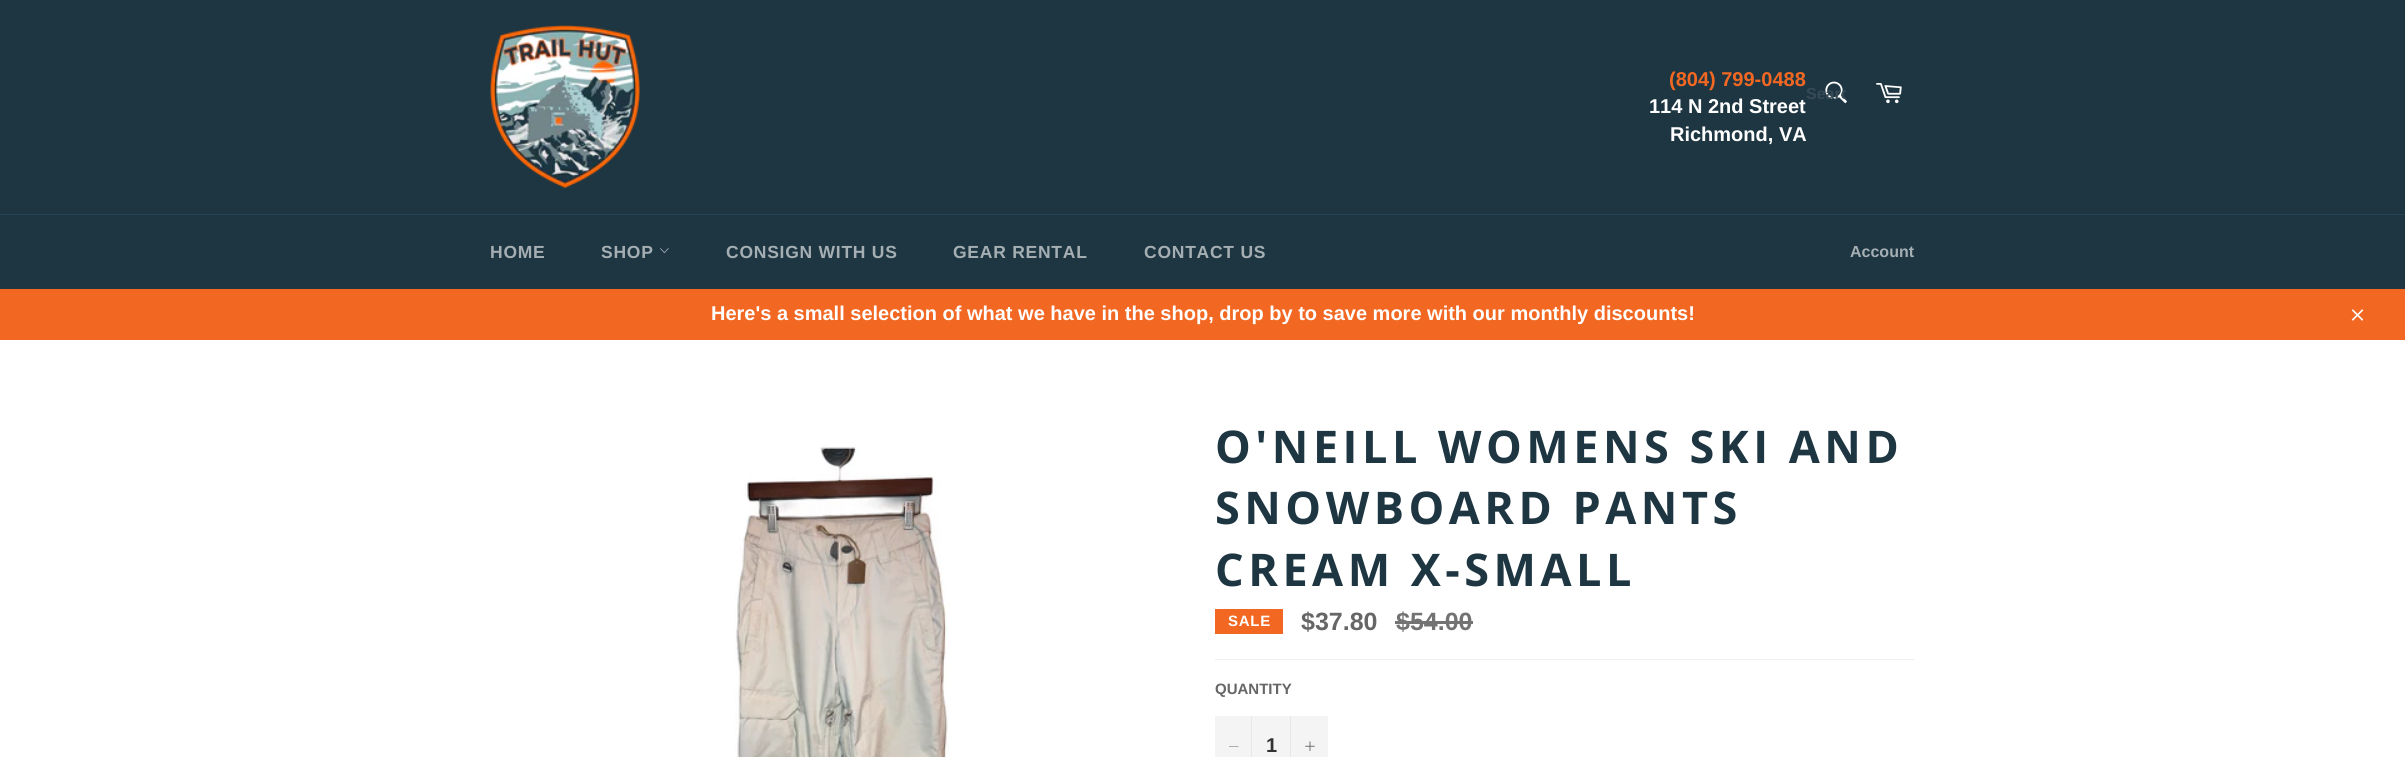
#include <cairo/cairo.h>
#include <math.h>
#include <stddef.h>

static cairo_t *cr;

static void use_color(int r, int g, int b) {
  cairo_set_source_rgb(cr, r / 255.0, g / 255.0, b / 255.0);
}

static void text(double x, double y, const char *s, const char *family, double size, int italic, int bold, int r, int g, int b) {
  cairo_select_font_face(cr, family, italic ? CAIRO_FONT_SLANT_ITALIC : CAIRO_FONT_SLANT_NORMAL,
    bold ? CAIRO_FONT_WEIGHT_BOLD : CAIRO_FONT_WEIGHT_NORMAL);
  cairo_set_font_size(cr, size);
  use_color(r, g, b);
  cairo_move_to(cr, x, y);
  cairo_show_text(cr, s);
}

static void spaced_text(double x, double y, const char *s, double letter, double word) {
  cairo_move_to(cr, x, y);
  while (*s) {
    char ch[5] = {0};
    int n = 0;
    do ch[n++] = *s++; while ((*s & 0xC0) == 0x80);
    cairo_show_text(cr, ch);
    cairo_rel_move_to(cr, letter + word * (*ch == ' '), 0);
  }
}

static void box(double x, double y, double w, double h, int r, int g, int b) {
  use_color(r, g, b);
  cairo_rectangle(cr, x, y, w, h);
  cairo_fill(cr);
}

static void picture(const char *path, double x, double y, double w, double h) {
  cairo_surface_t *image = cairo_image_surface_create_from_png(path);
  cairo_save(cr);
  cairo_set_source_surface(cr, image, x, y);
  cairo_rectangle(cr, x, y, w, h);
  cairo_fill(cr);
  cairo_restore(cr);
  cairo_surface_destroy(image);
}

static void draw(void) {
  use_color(30, 54, 66);
  cairo_paint(cr);
  picture("img_01.png", 490, 25, 150, 164);
  picture("img_02.png", 1825, 81, 22, 23);
  picture("img_03.png", 1876, 83, 26, 21);
  box(0, 214, 2405, 1, 38, 68, 84);
  picture("img_04.png", 660, 248, 9, 6);
  box(0, 289, 2405, 51, 242, 103, 34);
  picture("img_05.png", 2351, 309, 13, 12);
  box(0, 340, 2405, 417, 255, 255, 255);
  picture("img_06.png", 735, 445, 214, 312);
  box(1215, 609, 68, 25, 242, 103, 34);
  box(1395, 621, 78, 3, 115, 115, 115);
  box(1215, 659, 700, 1, 241, 241, 241);
  box(1215, 716, 113, 41, 244, 244, 244);
  box(1251, 716, 1, 41, 231, 231, 231);
  use_color(102, 102, 102);
  cairo_set_fill_rule(cr, CAIRO_FILL_RULE_EVEN_ODD);
  cairo_new_path(cr);
  cairo_move_to(cr, 1238.5, 746);
  cairo_line_to(cr, 1238.5, 746.5);
  cairo_line_to(cr, 1229, 746.5);
  cairo_line_to(cr, 1229, 746);
  cairo_close_path(cr);
  cairo_fill(cr);
  box(1290, 716, 1, 41, 231, 231, 231);
  picture("img_07.png", 1305, 741, 10, 10);
  text(1669, 86, "(804) 799-0488", "Liberation Sans", 20, 0, 1, 242, 103, 34);
  text(1649, 113, "114 N 2nd Street", "Liberation Sans", 20, 0, 1, 255, 255, 255);
  text(1670, 141, "Richmond, VA", "Liberation Sans", 20, 0, 1, 255, 255, 255);
  cairo_save(cr);
  cairo_set_fill_rule(cr, CAIRO_FILL_RULE_WINDING);
  cairo_rectangle(cr, 1806, 85, 40, 19);
  cairo_clip(cr);
  text(1806, 99, "Searc", "Liberation Sans", 16, 0, 1, 54, 75, 86);
  cairo_restore(cr);
  cairo_set_font_size(cr, 17.5);
  use_color(165, 175, 179);
  spaced_text(490, 258, "HOME", 0.75, 0);
  spaced_text(601, 258, "SHOP", 0.75, 0);
  spaced_text(726, 258, "CONSIGN WITH US", 0.75, 0);
  spaced_text(953, 258, "GEAR RENTAL", 0.75, 0);
  spaced_text(1144, 258, "CONTACT US", 0.75, 0);
  text(1850, 257, "Account", "Liberation Sans", 16, 0, 1, 165, 175, 179);
  text(711, 320, "Here's a small selection of what we have in the shop, drop by to save more with our monthly discounts!", "Liberation Sans", 20, 0, 1, 255, 255, 255);
  cairo_select_font_face(cr, "Open Sans", CAIRO_FONT_SLANT_NORMAL, CAIRO_FONT_WEIGHT_BOLD);
  cairo_set_font_size(cr, 45);
  use_color(30, 54, 66);
  spaced_text(1215, 463, "O'NEILL WOMENS SKI AND", 4.5, 0);
  spaced_text(1215, 524, "SNOWBOARD PANTS", 4.5, 0);
  spaced_text(1215, 586, "CREAM X-SMALL", 4.5, 0);
  cairo_select_font_face(cr, "Liberation Sans", CAIRO_FONT_SLANT_NORMAL, CAIRO_FONT_WEIGHT_BOLD);
  cairo_set_font_size(cr, 15);
  use_color(255, 255, 255);
  spaced_text(1228, 626, "SALE", 0.75, 0);
  text(1301, 630, "$37.80", "Liberation Sans", 25, 0, 1, 102, 102, 102);
  text(1396, 630, "$54.00", "Liberation Sans", 25, 0, 1, 115, 115, 115);
  text(1215, 694, "QUANTITY", "Liberation Sans", 15, 0, 1, 102, 102, 102);
  text(1266, 752, "1", "Liberation Sans", 20, 0, 1, 51, 51, 51);
}

int main(void) {
  cairo_surface_t *surface = cairo_image_surface_create(CAIRO_FORMAT_RGB24, 2405, 757);
  cr = cairo_create(surface);
  cairo_font_options_t *options = cairo_font_options_create();
  cairo_font_options_set_hint_metrics(options, CAIRO_HINT_METRICS_OFF);
  cairo_font_options_set_hint_style(options, CAIRO_HINT_STYLE_NONE);
  cairo_set_font_options(cr, options);
  cairo_set_miter_limit(cr, 4);
  draw();
  cairo_surface_write_to_png(surface, "out.png");
  cairo_font_options_destroy(options);
  cairo_destroy(cr);
  cairo_surface_destroy(surface);
  return 0;
}
